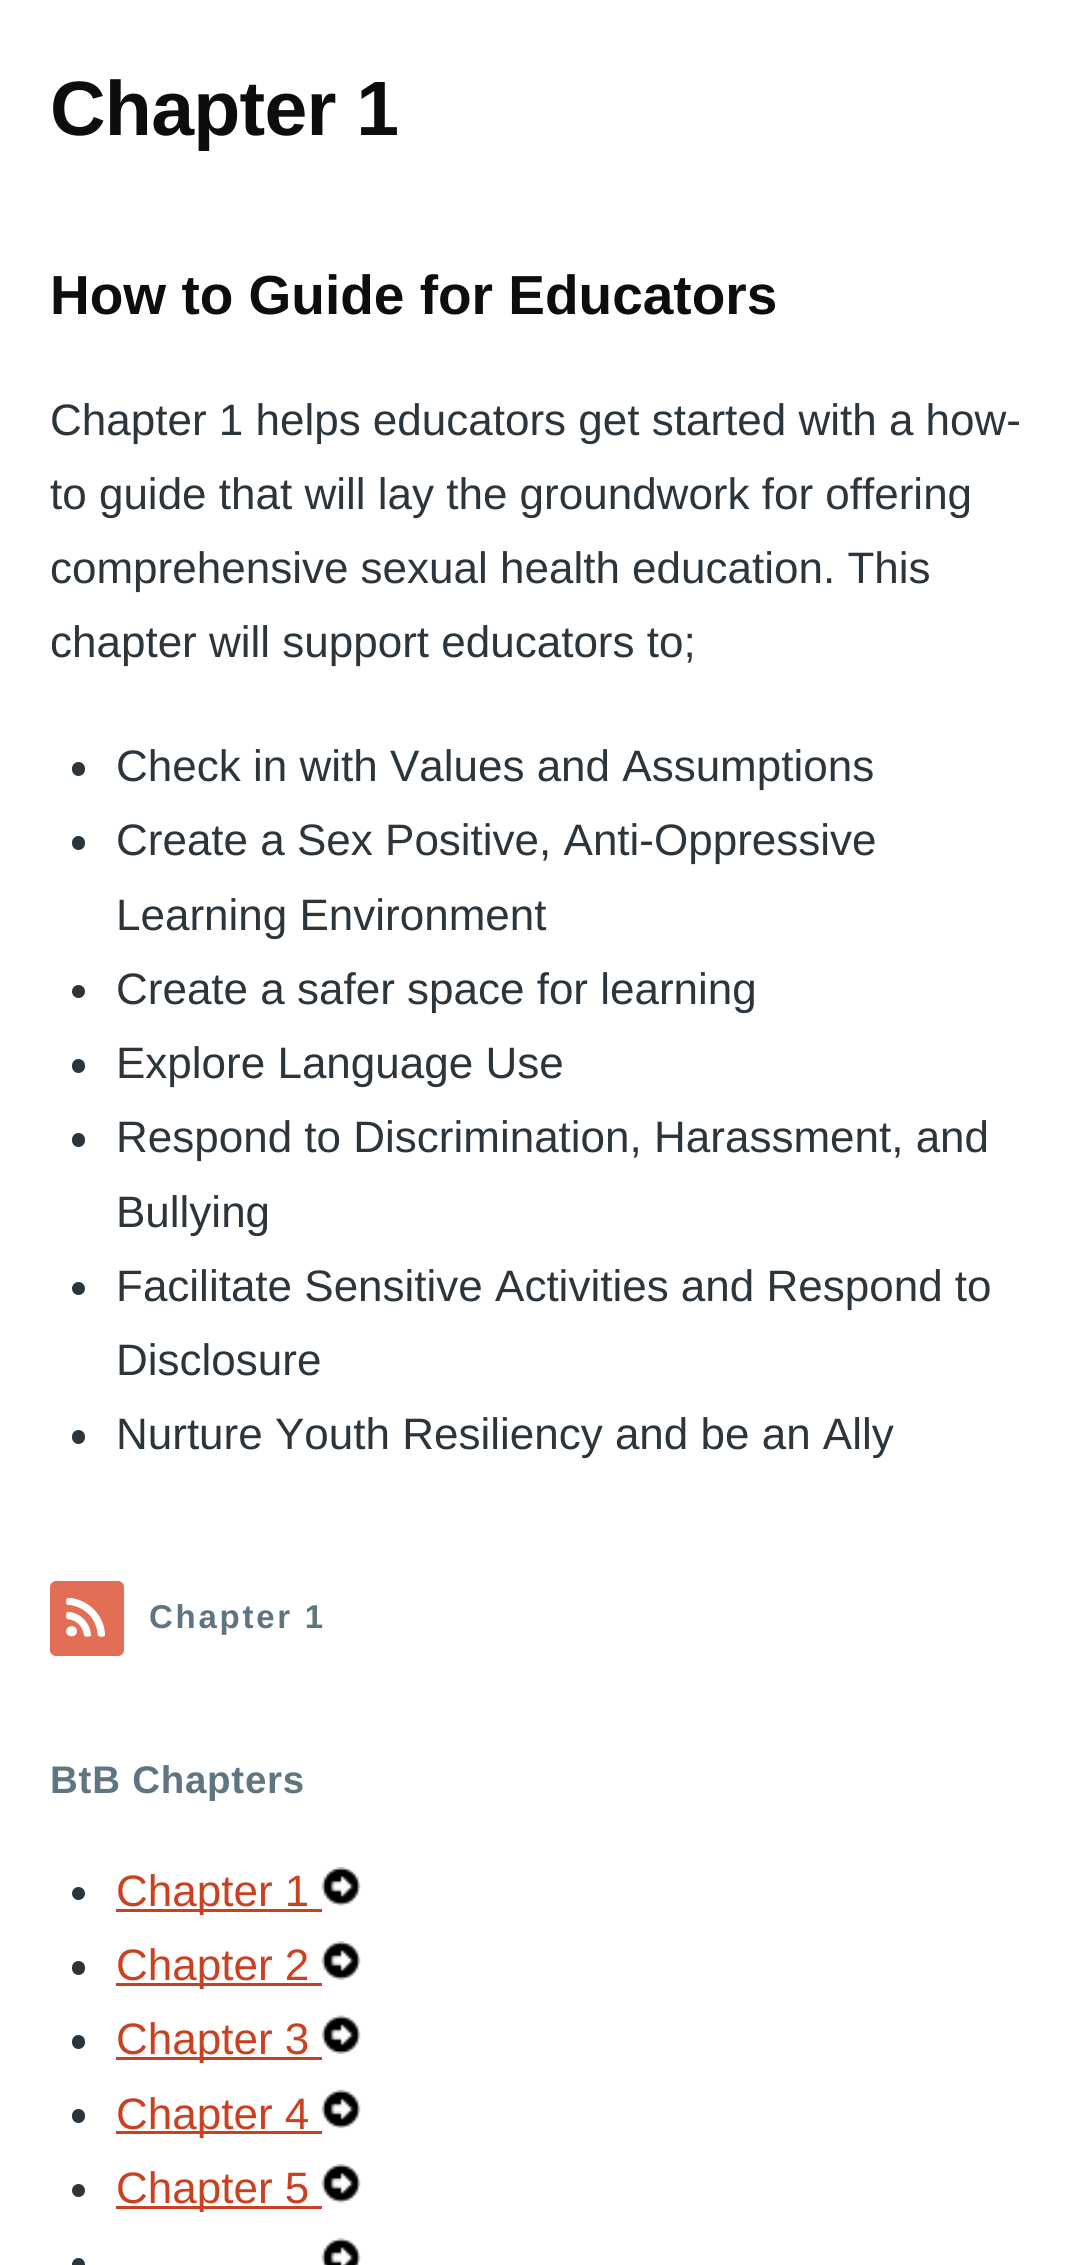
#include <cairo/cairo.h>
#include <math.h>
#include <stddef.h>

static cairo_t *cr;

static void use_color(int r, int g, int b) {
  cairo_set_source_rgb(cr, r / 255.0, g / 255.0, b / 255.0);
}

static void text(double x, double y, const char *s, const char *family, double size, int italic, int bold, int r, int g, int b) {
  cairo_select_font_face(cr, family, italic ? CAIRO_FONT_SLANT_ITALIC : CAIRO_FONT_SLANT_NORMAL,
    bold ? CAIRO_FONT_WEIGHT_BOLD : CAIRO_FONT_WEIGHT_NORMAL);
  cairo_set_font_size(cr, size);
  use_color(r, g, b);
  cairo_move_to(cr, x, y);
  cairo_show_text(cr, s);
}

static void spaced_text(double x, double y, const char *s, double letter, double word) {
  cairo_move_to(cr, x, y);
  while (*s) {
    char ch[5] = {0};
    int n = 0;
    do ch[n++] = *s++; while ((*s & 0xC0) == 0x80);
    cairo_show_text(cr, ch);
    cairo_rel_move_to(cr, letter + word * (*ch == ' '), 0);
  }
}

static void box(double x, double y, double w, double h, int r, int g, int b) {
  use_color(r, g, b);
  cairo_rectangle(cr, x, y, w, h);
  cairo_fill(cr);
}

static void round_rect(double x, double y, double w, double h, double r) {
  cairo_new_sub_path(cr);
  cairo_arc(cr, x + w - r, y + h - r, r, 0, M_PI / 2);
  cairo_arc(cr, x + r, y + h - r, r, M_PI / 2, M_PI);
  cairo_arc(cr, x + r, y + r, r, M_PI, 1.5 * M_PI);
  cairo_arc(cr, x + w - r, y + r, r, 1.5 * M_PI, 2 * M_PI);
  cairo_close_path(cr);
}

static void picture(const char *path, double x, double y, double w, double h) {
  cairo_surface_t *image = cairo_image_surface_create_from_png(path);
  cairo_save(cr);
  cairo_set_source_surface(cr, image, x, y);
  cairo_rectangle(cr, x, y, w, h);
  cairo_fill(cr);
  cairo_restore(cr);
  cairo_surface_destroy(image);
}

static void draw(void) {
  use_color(255, 255, 255);
  cairo_paint(cr);
  use_color(43, 53, 59);
  round_rect(72, 762, 13, 14, 6.5);
  cairo_fill(cr);
  round_rect(72, 836, 13, 14, 6.5);
  cairo_fill(cr);
  cairo_arc(cr, 78.5, 991.5, 6.5, 0, 2 * M_PI);
  cairo_fill(cr);
  round_rect(72, 1059, 13, 14, 6.5);
  cairo_fill(cr);
  round_rect(72, 1133, 13, 14, 6.5);
  cairo_fill(cr);
  cairo_arc(cr, 78.5, 1288.5, 6.5, 0, 2 * M_PI);
  cairo_fill(cr);
  round_rect(72, 1430, 13, 14, 6.5);
  cairo_fill(cr);
  use_color(226, 111, 85);
  round_rect(50, 1581, 74, 75, 6);
  cairo_fill(cr);
  picture("img_01.png", 66, 1598, 39, 39);
  use_color(43, 53, 59);
  cairo_arc(cr, 78.5, 1893.5, 6.5, 0, 2 * M_PI);
  cairo_fill(cr);
  box(116, 1909, 206, 3, 202, 65, 34);
  picture("img_02.png", 321, 1867, 40, 39);
  use_color(43, 53, 59);
  round_rect(72, 1961, 13, 14, 6.5);
  cairo_fill(cr);
  box(116, 1983, 206, 3, 202, 65, 34);
  picture("img_03.png", 321, 1941, 40, 39);
  use_color(43, 53, 59);
  round_rect(72, 2035, 13, 14, 6.5);
  cairo_fill(cr);
  box(116, 2057, 206, 3, 202, 65, 34);
  picture("img_04.png", 321, 2015, 40, 39);
  use_color(43, 53, 59);
  round_rect(72, 2109, 13, 14, 6.5);
  cairo_fill(cr);
  box(116, 2131, 206, 3, 202, 65, 34);
  picture("img_05.png", 321, 2089, 40, 40);
  use_color(43, 53, 59);
  cairo_arc(cr, 78.5, 2190.5, 6.5, 0, 2 * M_PI);
  cairo_fill(cr);
  box(116, 2206, 206, 3, 202, 65, 34);
  picture("img_02.png", 321, 2164, 40, 39);
  use_color(43, 53, 59);
  round_rect(72, 2258, 13, 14, 6.5);
  cairo_fill(cr);
  picture("img_06.png", 321, 2238, 40, 27);
  cairo_select_font_face(cr, "Liberation Sans", CAIRO_FONT_SLANT_NORMAL, CAIRO_FONT_WEIGHT_BOLD);
  cairo_set_font_size(cr, 77);
  use_color(11, 13, 15);
  spaced_text(50, 135, "Chapter 1", -0.75, 0);
  text(50, 314, "How to Guide for Educators", "Liberation Sans", 55, 0, 1, 11, 13, 15);
  text(50, 435, "Chapter 1 helps educators get started with a how-", "Liberation Sans", 44, 0, 0, 43, 53, 59);
  text(50, 509, "to guide that will lay the groundwork for offering", "Liberation Sans", 44, 0, 0, 43, 53, 59);
  text(50, 583, "comprehensive sexual health education. This", "Liberation Sans", 44, 0, 0, 43, 53, 59);
  text(50, 657, "chapter will support educators to;", "Liberation Sans", 44, 0, 0, 43, 53, 59);
  text(116, 781, "Check in with Values and Assumptions", "Liberation Sans", 44, 0, 0, 43, 53, 59);
  text(116, 855, "Create a Sex Positive, Anti-Oppressive", "Liberation Sans", 44, 0, 0, 43, 53, 59);
  text(116, 930, "Learning Environment", "Liberation Sans", 44, 0, 0, 43, 53, 59);
  text(116, 1004, "Create a safer space for learning", "Liberation Sans", 44, 0, 0, 43, 53, 59);
  text(116, 1078, "Explore Language Use", "Liberation Sans", 44, 0, 0, 43, 53, 59);
  text(116, 1152, "Respond to Discrimination, Harassment, and", "Liberation Sans", 44, 0, 0, 43, 53, 59);
  text(116, 1227, "Bullying", "Liberation Sans", 44, 0, 0, 43, 53, 59);
  text(116, 1301, "Facilitate Sensitive Activities and Respond to", "Liberation Sans", 44, 0, 0, 43, 53, 59);
  text(116, 1375, "Disclosure", "Liberation Sans", 44, 0, 0, 43, 53, 59);
  text(116, 1449, "Nurture Youth Resiliency and be an Ally", "Liberation Sans", 44, 0, 0, 43, 53, 59);
  cairo_select_font_face(cr, "Liberation Sans", CAIRO_FONT_SLANT_NORMAL, CAIRO_FONT_WEIGHT_BOLD);
  cairo_set_font_size(cr, 33);
  use_color(95, 117, 129);
  spaced_text(149, 1628, "Chapter 1", 2.75, 0);
  cairo_set_font_size(cr, 38.5);
  spaced_text(50, 1793, "BtB Chapters", 0.75, 0);
  text(116, 1906, "Chapter 1", "Liberation Sans", 44, 0, 0, 202, 65, 34);
  text(116, 1980, "Chapter 2", "Liberation Sans", 44, 0, 0, 202, 65, 34);
  text(116, 2054, "Chapter 3", "Liberation Sans", 44, 0, 0, 202, 65, 34);
  text(116, 2129, "Chapter 4", "Liberation Sans", 44, 0, 0, 202, 65, 34);
  text(116, 2203, "Chapter 5", "Liberation Sans", 44, 0, 0, 202, 65, 34);
}

int main(void) {
  cairo_surface_t *surface = cairo_image_surface_create(CAIRO_FORMAT_RGB24, 1082, 2265);
  cr = cairo_create(surface);
  cairo_font_options_t *options = cairo_font_options_create();
  cairo_font_options_set_hint_metrics(options, CAIRO_HINT_METRICS_OFF);
  cairo_font_options_set_hint_style(options, CAIRO_HINT_STYLE_NONE);
  cairo_set_font_options(cr, options);
  cairo_set_miter_limit(cr, 4);
  draw();
  cairo_surface_write_to_png(surface, "out.png");
  cairo_font_options_destroy(options);
  cairo_destroy(cr);
  cairo_surface_destroy(surface);
  return 0;
}
